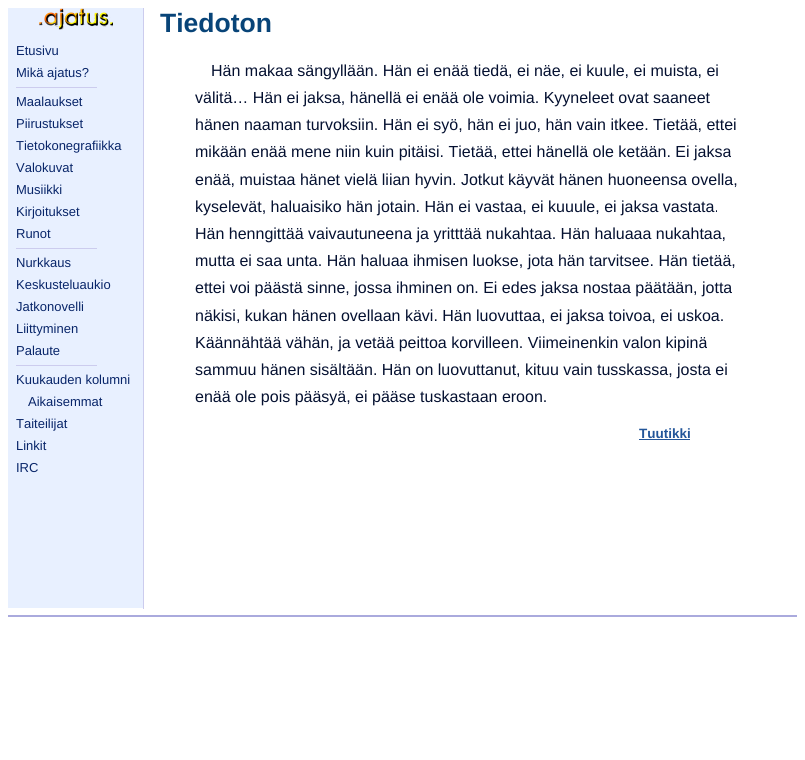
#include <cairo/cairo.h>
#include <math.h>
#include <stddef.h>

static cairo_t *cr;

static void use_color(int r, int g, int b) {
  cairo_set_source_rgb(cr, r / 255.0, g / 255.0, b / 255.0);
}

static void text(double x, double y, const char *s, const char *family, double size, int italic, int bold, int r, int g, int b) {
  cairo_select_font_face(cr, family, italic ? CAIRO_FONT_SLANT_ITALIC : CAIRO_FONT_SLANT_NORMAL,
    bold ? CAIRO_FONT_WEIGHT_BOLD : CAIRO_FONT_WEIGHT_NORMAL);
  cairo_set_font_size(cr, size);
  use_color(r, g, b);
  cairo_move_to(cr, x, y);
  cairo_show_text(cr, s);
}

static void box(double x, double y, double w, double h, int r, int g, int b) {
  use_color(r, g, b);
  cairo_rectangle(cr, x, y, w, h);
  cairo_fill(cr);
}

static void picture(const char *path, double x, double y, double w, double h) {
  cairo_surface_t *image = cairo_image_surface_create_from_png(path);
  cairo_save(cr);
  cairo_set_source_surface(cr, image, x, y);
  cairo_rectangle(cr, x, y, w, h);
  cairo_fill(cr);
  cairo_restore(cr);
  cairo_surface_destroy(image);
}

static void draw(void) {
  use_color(255, 255, 255);
  cairo_paint(cr);
  box(8, 8, 135, 600, 232, 240, 255);
  box(143, 8, 1, 601, 204, 204, 238);
  picture("img_01.png", 39, 8, 74, 22);
  box(16, 87, 81, 1, 204, 204, 238);
  box(16, 248, 81, 1, 204, 204, 238);
  box(16, 365, 81, 1, 204, 204, 238);
  box(639, 439, 51, 1, 34, 85, 153);
  box(8, 615, 789, 2, 170, 170, 221);
  text(16, 55, "Etusivu", "Liberation Sans", 13, 0, 0, 8, 37, 105);
  text(16, 77, "Mikä ajatus?", "Liberation Sans", 13, 0, 0, 8, 37, 105);
  text(16, 106, "Maalaukset", "Liberation Sans", 13, 0, 0, 8, 37, 105);
  text(16, 128, "Piirustukset", "Liberation Sans", 13, 0, 0, 8, 37, 105);
  text(16, 150, "Tietokonegrafiikka", "Liberation Sans", 13, 0, 0, 8, 37, 105);
  text(16, 172, "Valokuvat", "Liberation Sans", 13, 0, 0, 8, 37, 105);
  text(16, 194, "Musiikki", "Liberation Sans", 13, 0, 0, 8, 37, 105);
  text(16, 216, "Kirjoitukset", "Liberation Sans", 13, 0, 0, 8, 37, 105);
  text(16, 238, "Runot", "Liberation Sans", 13, 0, 0, 8, 37, 105);
  text(16, 267, "Nurkkaus", "Liberation Sans", 13, 0, 0, 8, 37, 105);
  text(16, 289, "Keskusteluaukio", "Liberation Sans", 13, 0, 0, 8, 37, 105);
  text(16, 311, "Jatkonovelli", "Liberation Sans", 13, 0, 0, 8, 37, 105);
  text(16, 333, "Liittyminen", "Liberation Sans", 13, 0, 0, 8, 37, 105);
  text(16, 355, "Palaute", "Liberation Sans", 13, 0, 0, 8, 37, 105);
  text(16, 384, "Kuukauden kolumni", "Liberation Sans", 13, 0, 0, 8, 37, 105);
  text(28, 406, "Aikaisemmat", "Liberation Sans", 13, 0, 0, 8, 37, 105);
  text(16, 428, "Taiteilijat", "Liberation Sans", 13, 0, 0, 8, 37, 105);
  text(16, 450, "Linkit", "Liberation Sans", 13, 0, 0, 8, 37, 105);
  text(16, 472, "IRC", "Liberation Sans", 13, 0, 0, 8, 37, 105);
  text(160, 32, "Tiedoton", "Liberation Sans", 26.5, 0, 1, 8, 68, 120);
  text(211, 76, "Hän makaa sängyllään. Hän ei enää tiedä, ei näe, ei kuule, ei muista, ei", "Liberation Sans", 16, 0, 0, 4, 16, 48);
  text(195, 103, "välitä… Hän ei jaksa, hänellä ei enää ole voimia. Kyyneleet ovat saaneet", "Liberation Sans", 16, 0, 0, 4, 16, 48);
  text(195, 130, "hänen naaman turvoksiin. Hän ei syö, hän ei juo, hän vain itkee. Tietää, ettei", "Liberation Sans", 16, 0, 0, 4, 16, 48);
  text(195, 157, "mikään enää mene niin kuin pitäisi. Tietää, ettei hänellä ole ketään. Ei jaksa", "Liberation Sans", 16, 0, 0, 4, 16, 48);
  text(195, 185, "enää, muistaa hänet vielä liian hyvin. Jotkut käyvät hänen huoneensa ovella,", "Liberation Sans", 16, 0, 0, 4, 16, 48);
  text(195, 212, "kyselevät, haluaisiko hän jotain. Hän ei vastaa, ei kuuule, ei jaksa vastata.", "Liberation Sans", 16, 0, 0, 4, 16, 48);
  text(195, 239, "Hän henngittää vaivautuneena ja yritttää nukahtaa. Hän haluaaa nukahtaa,", "Liberation Sans", 16, 0, 0, 4, 16, 48);
  text(195, 266, "mutta ei saa unta. Hän haluaa ihmisen luokse, jota hän tarvitsee. Hän tietää,", "Liberation Sans", 16, 0, 0, 4, 16, 48);
  text(195, 293, "ettei voi päästä sinne, jossa ihminen on. Ei edes jaksa nostaa päätään, jotta", "Liberation Sans", 16, 0, 0, 4, 16, 48);
  text(195, 321, "näkisi, kukan hänen ovellaan kävi. Hän luovuttaa, ei jaksa toivoa, ei uskoa.", "Liberation Sans", 16, 0, 0, 4, 16, 48);
  text(195, 348, "Käännähtää vähän, ja vetää peittoa korvilleen. Viimeinenkin valon kipinä", "Liberation Sans", 16, 0, 0, 4, 16, 48);
  text(195, 375, "sammuu hänen sisältään. Hän on luovuttanut, kituu vain tusskassa, josta ei", "Liberation Sans", 16, 0, 0, 4, 16, 48);
  text(195, 402, "enää ole pois pääsyä, ei pääse tuskastaan eroon.", "Liberation Sans", 16, 0, 0, 4, 16, 48);
  text(639, 438, "Tuutikki", "Liberation Sans", 13.5, 0, 1, 34, 85, 153);
}

int main(void) {
  cairo_surface_t *surface = cairo_image_surface_create(CAIRO_FORMAT_RGB24, 805, 760);
  cr = cairo_create(surface);
  cairo_font_options_t *options = cairo_font_options_create();
  cairo_font_options_set_hint_metrics(options, CAIRO_HINT_METRICS_OFF);
  cairo_font_options_set_hint_style(options, CAIRO_HINT_STYLE_NONE);
  cairo_set_font_options(cr, options);
  cairo_set_miter_limit(cr, 4);
  draw();
  cairo_surface_write_to_png(surface, "out.png");
  cairo_font_options_destroy(options);
  cairo_destroy(cr);
  cairo_surface_destroy(surface);
  return 0;
}
